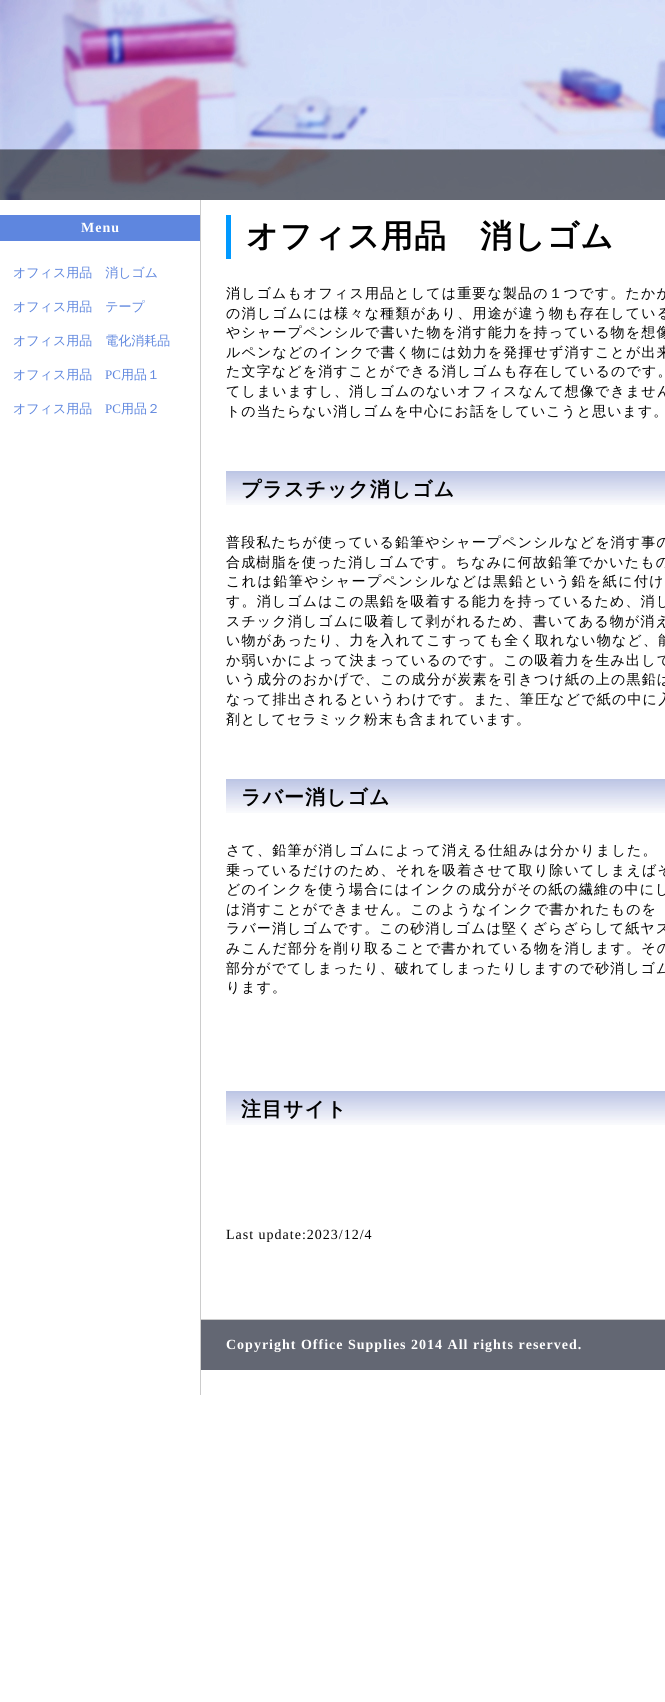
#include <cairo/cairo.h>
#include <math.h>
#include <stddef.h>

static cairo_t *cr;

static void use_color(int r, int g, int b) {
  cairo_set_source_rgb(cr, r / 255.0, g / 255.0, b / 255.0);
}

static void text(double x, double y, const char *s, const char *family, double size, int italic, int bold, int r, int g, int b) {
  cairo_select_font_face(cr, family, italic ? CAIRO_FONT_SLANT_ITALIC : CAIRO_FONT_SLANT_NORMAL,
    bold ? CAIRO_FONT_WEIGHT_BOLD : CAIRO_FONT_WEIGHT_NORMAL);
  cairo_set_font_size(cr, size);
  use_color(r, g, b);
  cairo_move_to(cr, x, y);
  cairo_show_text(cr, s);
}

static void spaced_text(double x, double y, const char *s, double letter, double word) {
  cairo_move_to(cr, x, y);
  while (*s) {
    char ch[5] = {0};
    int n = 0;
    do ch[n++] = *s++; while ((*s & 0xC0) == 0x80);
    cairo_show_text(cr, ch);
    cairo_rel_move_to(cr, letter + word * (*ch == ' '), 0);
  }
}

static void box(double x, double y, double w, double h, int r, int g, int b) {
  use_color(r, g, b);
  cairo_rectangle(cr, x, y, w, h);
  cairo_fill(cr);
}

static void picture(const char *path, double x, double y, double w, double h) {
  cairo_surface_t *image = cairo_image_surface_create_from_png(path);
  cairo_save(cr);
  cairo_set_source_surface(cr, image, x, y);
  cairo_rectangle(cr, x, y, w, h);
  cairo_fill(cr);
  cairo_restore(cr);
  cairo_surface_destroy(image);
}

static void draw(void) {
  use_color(255, 255, 255);
  cairo_paint(cr);
  picture("img_01.png", 0, 0, 665, 200);
  box(0, 215, 200, 26, 94, 134, 223);
  box(200, 200, 1, 1195, 204, 204, 204);
  box(226, 215, 5, 44, 0, 153, 255);
  picture("img_02.png", 226, 471, 439, 34);
  picture("img_02.png", 226, 779, 439, 34);
  picture("img_02.png", 226, 1091, 439, 34);
  box(201, 1320, 464, 50, 99, 103, 115);
  box(201, 1319, 464, 1, 204, 204, 204);
  cairo_select_font_face(cr, "Liberation Serif", CAIRO_FONT_SLANT_NORMAL, CAIRO_FONT_WEIGHT_BOLD);
  cairo_set_font_size(cr, 14);
  use_color(255, 255, 255);
  spaced_text(81, 232, "Menu", 1, 0);
  text(13, 277, "オフィス用品　消しゴム", "WenQuanYi Zen Hei Medium", 13, 0, 0, 94, 134, 222);
  text(13, 311, "オフィス用品　テープ", "WenQuanYi Zen Hei Medium", 13, 0, 0, 94, 134, 222);
  text(13, 345, "オフィス用品　電化消耗品", "WenQuanYi Zen Hei Medium", 13, 0, 0, 94, 134, 222);
  text(13, 379, "オフィス用品", "WenQuanYi Zen Hei Medium", 13, 0, 0, 94, 134, 222);
  text(105, 379, "PC", "Liberation Serif", 13, 0, 0, 94, 134, 222);
  text(121, 379, "用品１", "WenQuanYi Zen Hei Medium", 13, 0, 0, 94, 134, 222);
  text(13, 413, "オフィス用品", "WenQuanYi Zen Hei Medium", 13, 0, 0, 94, 134, 222);
  text(105, 413, "PC", "Liberation Serif", 13, 0, 0, 94, 134, 222);
  text(121, 413, "用品２", "WenQuanYi Zen Hei Medium", 13, 0, 0, 94, 134, 222);
  cairo_select_font_face(cr, "WenQuanYi Zen Hei", CAIRO_FONT_SLANT_NORMAL, CAIRO_FONT_WEIGHT_BOLD);
  cairo_set_font_size(cr, 32);
  use_color(0, 0, 0);
  spaced_text(246, 247, "オフィス用品　消しゴム", 1, 0);
  cairo_select_font_face(cr, "WenQuanYi Zen Hei Medium", CAIRO_FONT_SLANT_NORMAL, CAIRO_FONT_WEIGHT_NORMAL);
  cairo_set_font_size(cr, 14);
  spaced_text(226, 298, "消しゴムもオフィス用品としては重要な製品の１つです。たかが", 1.15, 0);
  spaced_text(226, 318, "の消しゴムには様々な種類があり、用途が違う物も存在している", 1.2, 0);
  spaced_text(226, 337, "やシャープペンシルで書いた物を消す能力を持っている物を想像", 1.15, 0);
  spaced_text(226, 357, "ルペンなどのインクで書く物には効力を発揮せず消すことが出来", 1.15, 0);
  spaced_text(226, 376, "た文字などを消すことができる消しゴムも存在しているのです。", 1.15, 0);
  spaced_text(226, 396, "てしまいますし、消しゴムのないオフィスなんて想像できません", 1.1, 0);
  spaced_text(226, 416, "トの当たらない消しゴムを中心にお話をしていこうと思います。", 1, 0);
  cairo_select_font_face(cr, "WenQuanYi Zen Hei", CAIRO_FONT_SLANT_NORMAL, CAIRO_FONT_WEIGHT_BOLD);
  cairo_set_font_size(cr, 20);
  spaced_text(241, 496, "プラスチック消しゴム", 1, 0);
  cairo_select_font_face(cr, "WenQuanYi Zen Hei Medium", CAIRO_FONT_SLANT_NORMAL, CAIRO_FONT_WEIGHT_NORMAL);
  cairo_set_font_size(cr, 14);
  spaced_text(226, 547, "普段私たちが使っている鉛筆やシャープペンシルなどを消す事の", 1.15, 0);
  spaced_text(226, 567, "合成樹脂を使った消しゴムです。ちなみに何故鉛筆でかいたもの", 1.15, 0);
  spaced_text(226, 586, "これは鉛筆やシャープペンシルなどは黒鉛という鉛を紙に付け", 1.45, 0);
  spaced_text(226, 606, "す。消しゴムはこの黒鉛を吸着する能力を持っているため、消し", 1.15, 0);
  spaced_text(226, 626, "スチック消しゴムに吸着して剥がれるため、書いてある物が消え", 1.1, 0);
  spaced_text(226, 645, "い物があったり、力を入れてこすっても全く取れない物など、能", 1.2, 0);
  spaced_text(226, 665, "か弱いかによって決まっているのです。この吸着力を生み出して", 1.15, 0);
  spaced_text(226, 684, "いう成分のおかげで、この成分が炭素を引きつけ紙の上の黒鉛は", 1.2, 0);
  spaced_text(226, 704, "なって排出されるというわけです。また、筆圧などで紙の中に入", 1.2, 0);
  spaced_text(226, 724, "剤としてセラミック粉末も含まれています。", 1, 0);
  cairo_select_font_face(cr, "WenQuanYi Zen Hei", CAIRO_FONT_SLANT_NORMAL, CAIRO_FONT_WEIGHT_BOLD);
  cairo_set_font_size(cr, 20);
  spaced_text(241, 804, "ラバー消しゴム", 1, 0);
  cairo_select_font_face(cr, "WenQuanYi Zen Hei Medium", CAIRO_FONT_SLANT_NORMAL, CAIRO_FONT_WEIGHT_NORMAL);
  cairo_set_font_size(cr, 14);
  spaced_text(226, 855, "さて、鉛筆が消しゴムによって消える仕組みは分かりました。", 1.2, 0);
  spaced_text(226, 875, "乗っているだけのため、それを吸着させて取り除いてしまえばそ", 1.15, 0);
  spaced_text(226, 894, "どのインクを使う場合にはインクの成分がその紙の繊維の中にし", 1.1, 0);
  spaced_text(226, 914, "は消すことができません。このようなインクで書かれたものを", 1.1, 0);
  spaced_text(226, 933, "ラバー消しゴムです。この砂消しゴムは堅くざらざらして紙ヤス", 1.1, 0);
  spaced_text(226, 953, "みこんだ部分を削り取ることで書かれている物を消します。その", 1.15, 0);
  spaced_text(226, 973, "部分がでてしまったり、破れてしまったりしますので砂消しゴム", 1.1, 0);
  spaced_text(226, 992, "ります。", 1, 0);
  cairo_select_font_face(cr, "WenQuanYi Zen Hei", CAIRO_FONT_SLANT_NORMAL, CAIRO_FONT_WEIGHT_BOLD);
  cairo_set_font_size(cr, 20);
  spaced_text(241, 1116, "注目サイト", 1, 0);
  cairo_select_font_face(cr, "Liberation Serif", CAIRO_FONT_SLANT_NORMAL, CAIRO_FONT_WEIGHT_NORMAL);
  cairo_set_font_size(cr, 14);
  spaced_text(226, 1239, "Last update:2023/12/4", 1, 0);
  cairo_select_font_face(cr, "Liberation Serif", CAIRO_FONT_SLANT_NORMAL, CAIRO_FONT_WEIGHT_BOLD);
  use_color(255, 255, 255);
  spaced_text(226, 1349, "Copyright Office Supplies 2014 All rights reserved.", 1, 0);
}

int main(void) {
  cairo_surface_t *surface = cairo_image_surface_create(CAIRO_FORMAT_RGB24, 665, 1702);
  cr = cairo_create(surface);
  cairo_font_options_t *options = cairo_font_options_create();
  cairo_font_options_set_hint_metrics(options, CAIRO_HINT_METRICS_OFF);
  cairo_font_options_set_hint_style(options, CAIRO_HINT_STYLE_NONE);
  cairo_set_font_options(cr, options);
  cairo_set_miter_limit(cr, 4);
  draw();
  cairo_surface_write_to_png(surface, "out.png");
  cairo_font_options_destroy(options);
  cairo_destroy(cr);
  cairo_surface_destroy(surface);
  return 0;
}
